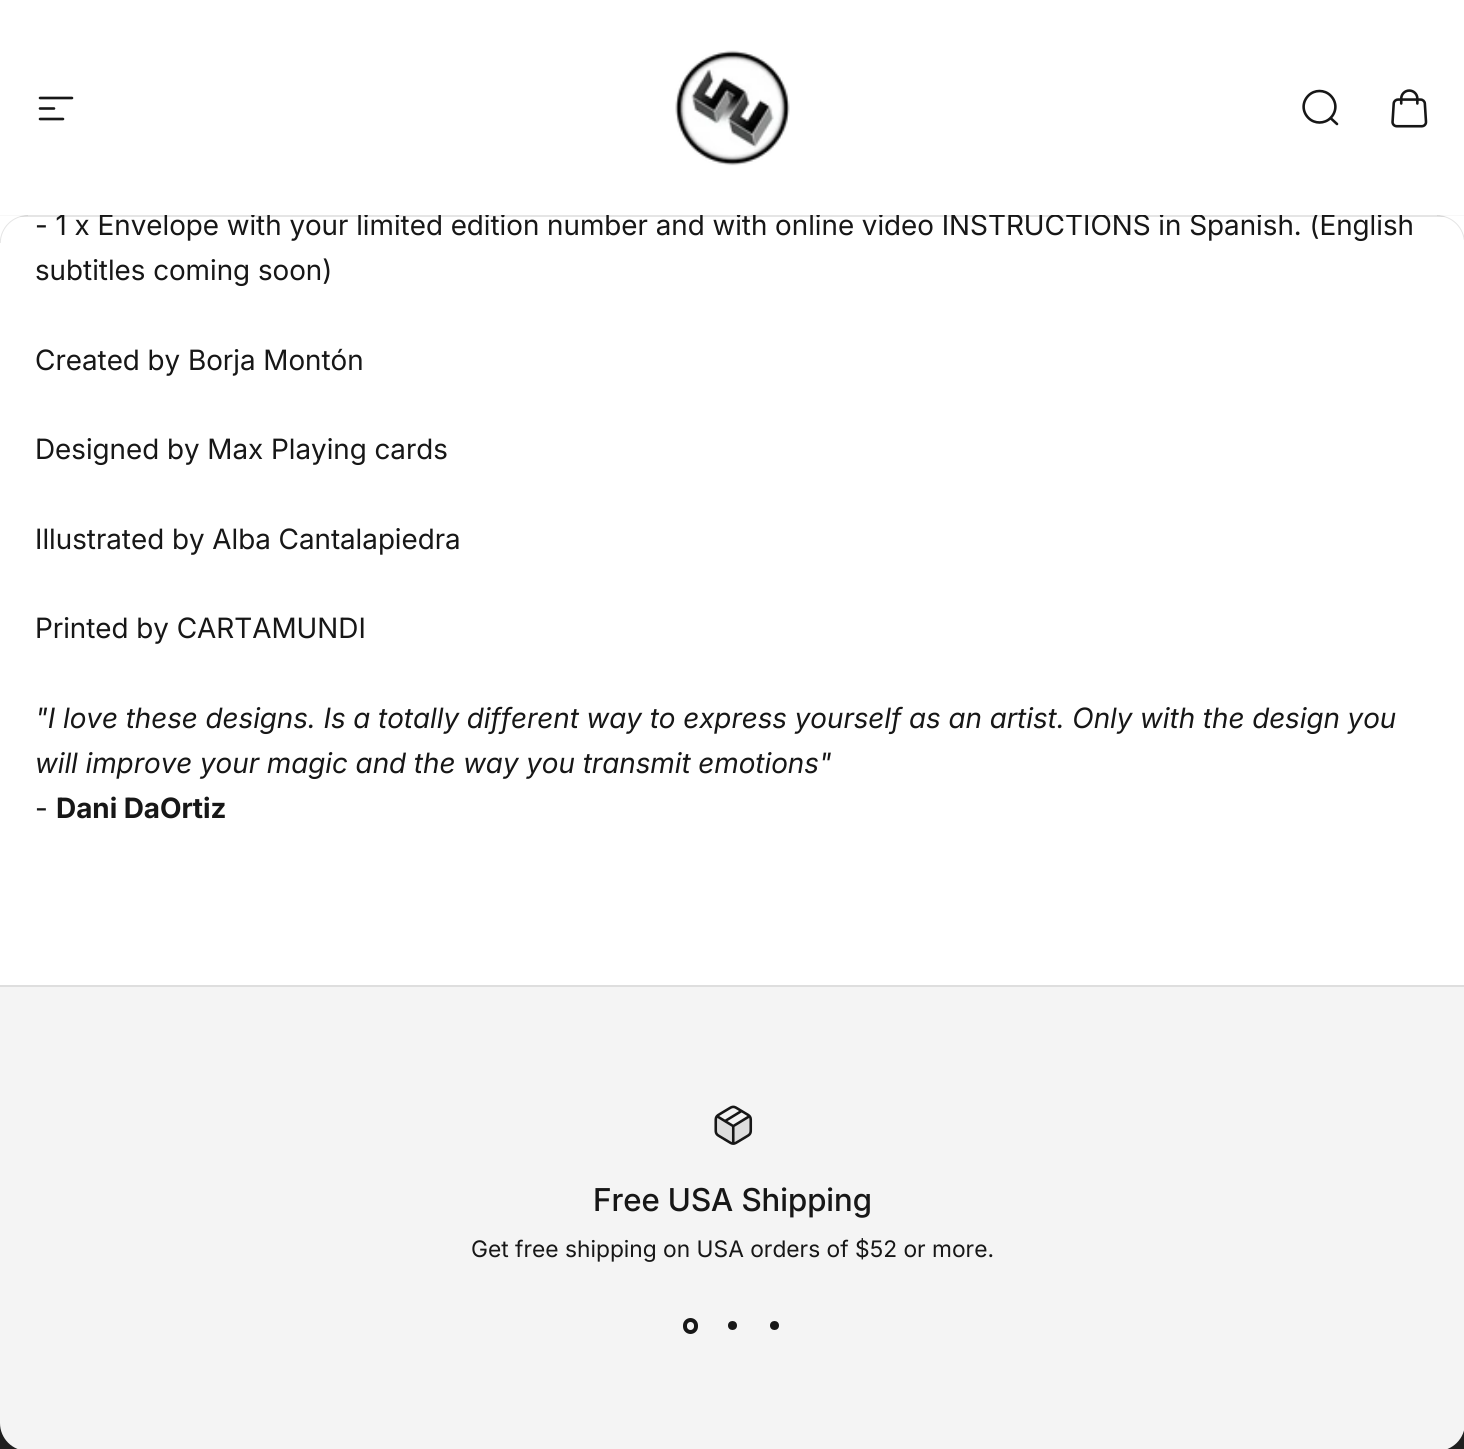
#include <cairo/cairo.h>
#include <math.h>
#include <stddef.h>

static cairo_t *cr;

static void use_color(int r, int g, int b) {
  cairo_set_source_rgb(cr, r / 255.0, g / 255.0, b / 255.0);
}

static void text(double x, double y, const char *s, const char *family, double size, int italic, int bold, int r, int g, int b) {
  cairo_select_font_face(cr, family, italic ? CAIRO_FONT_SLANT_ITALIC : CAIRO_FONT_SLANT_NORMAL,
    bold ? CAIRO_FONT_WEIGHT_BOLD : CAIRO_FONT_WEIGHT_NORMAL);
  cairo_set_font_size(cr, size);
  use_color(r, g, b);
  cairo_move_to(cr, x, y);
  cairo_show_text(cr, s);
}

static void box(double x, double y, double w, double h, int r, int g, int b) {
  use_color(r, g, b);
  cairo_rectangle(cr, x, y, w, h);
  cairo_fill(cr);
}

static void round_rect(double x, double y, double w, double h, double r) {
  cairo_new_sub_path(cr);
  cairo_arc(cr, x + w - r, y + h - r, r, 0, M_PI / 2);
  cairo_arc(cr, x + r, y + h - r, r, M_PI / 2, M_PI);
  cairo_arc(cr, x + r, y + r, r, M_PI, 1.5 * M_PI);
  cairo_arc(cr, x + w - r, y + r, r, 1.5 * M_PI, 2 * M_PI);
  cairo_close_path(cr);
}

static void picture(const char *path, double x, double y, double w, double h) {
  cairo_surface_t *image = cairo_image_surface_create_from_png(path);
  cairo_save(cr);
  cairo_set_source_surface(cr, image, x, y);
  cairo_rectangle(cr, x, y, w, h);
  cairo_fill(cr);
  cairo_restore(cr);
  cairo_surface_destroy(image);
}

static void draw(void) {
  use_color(255, 255, 255);
  cairo_paint(cr);
  cairo_new_path(cr);
  cairo_move_to(cr, 40, 98);
  cairo_line_to(cr, 72, 98);
  cairo_move_to(cr, 40, 108.5);
  cairo_line_to(cr, 54, 108.5);
  cairo_move_to(cr, 40, 119);
  cairo_line_to(cr, 63, 119);
  use_color(23, 23, 23);
  cairo_set_line_width(cr, 2.6);
  cairo_set_line_cap(cr, CAIRO_LINE_CAP_ROUND);
  cairo_stroke(cr);
  picture("img_01.png", 675, 50, 115, 116);
  cairo_new_path(cr);
  cairo_move_to(cr, 1337, 124);
  cairo_line_to(cr, 1330.5, 118);
  cairo_move_to(cr, 1330.5, 118);
  cairo_curve_to(cr, 1337, 111.5, 1337, 102, 1330.5, 95.5);
  cairo_curve_to(cr, 1324.5, 89.5, 1314.5, 89.5, 1308.5, 95.5);
  cairo_curve_to(cr, 1302, 102, 1302, 111.5, 1308.5, 118);
  cairo_curve_to(cr, 1314.5, 124, 1324.5, 124, 1330.5, 118);
  cairo_close_path(cr);
  cairo_stroke(cr);
  picture("img_02.png", 1391, 89, 37, 39);
  cairo_set_source_rgba(cr, 0.09, 0.09, 0.09, 0.11);
  cairo_rectangle(cr, 0, 215, 1464, 2);
  cairo_fill(cr);
  picture("img_03.png", 0, 215, 28, 28);
  picture("img_04.png", 1437, 215, 27, 25);
  box(0, 1423, 1464, 26, 31, 31, 31);
  use_color(244, 244, 244);
  cairo_new_path(cr);
  cairo_move_to(cr, 0, 985);
  cairo_line_to(cr, 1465, 985);
  cairo_line_to(cr, 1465, 1423);
  cairo_curve_to(cr, 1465, 1438.5, 1452.5, 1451, 1437, 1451);
  cairo_line_to(cr, 28, 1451);
  cairo_curve_to(cr, 12.5, 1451, 0, 1438.5, 0, 1423);
  cairo_close_path(cr);
  cairo_fill(cr);
  box(0, 985, 1464, 2, 222, 222, 222);
  picture("img_05.png", 714, 1105, 39, 40);
  round_rect(685, 1320, 11, 12, 5.5);
  use_color(23, 23, 23);
  cairo_set_line_width(cr, 4);
  cairo_set_line_cap(cr, CAIRO_LINE_CAP_BUTT);
  cairo_stroke(cr);
  cairo_arc(cr, 732.5, 1325.5, 4.5, 0, 2 * M_PI);
  cairo_fill(cr);
  cairo_arc(cr, 774.5, 1325.5, 4.5, 0, 2 * M_PI);
  cairo_fill(cr);
  text(35, 235, "- 1 x Envelope with your limited edition number and with online video INSTRUCTIONS in Spanish. (English", "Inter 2", 28, 0, 0, 23, 23, 23);
  box(60, 212, 1343, 3, 255, 255, 255);
  text(35, 280, "subtitles coming soon)", "Inter 2", 28, 0, 0, 23, 23, 23);
  text(35, 370, "Created by Borja Montón", "Inter 2", 28, 0, 0, 23, 23, 23);
  text(35, 459, "Designed by Max Playing cards", "Inter 2", 28, 0, 0, 23, 23, 23);
  text(35, 549, "Illustrated by Alba Cantalapiedra", "Inter 2", 28, 0, 0, 23, 23, 23);
  text(35, 638, "Printed by CARTAMUNDI", "Inter 2", 28, 0, 0, 23, 23, 23);
  text(35, 728, "\"I love these designs. Is a totally different way to express yourself as an artist. Only with the design you", "Inter", 28, 1, 0, 23, 23, 23);
  text(35, 773, "will improve your magic and the way you transmit emotions\"", "Inter", 28, 1, 0, 23, 23, 23);
  text(35, 818, "-", "Inter 2", 28, 0, 0, 23, 23, 23);
  text(56, 818, "Dani DaOrtiz", "Inter", 28, 0, 1, 23, 23, 23);
  text(593, 1211, "Free USA Shipping", "Inter Medium", 31.5, 0, 0, 23, 23, 23);
  text(471, 1257, "Get free shipping on USA orders of $52 or more.", "Inter", 22.75, 0, 0, 23, 23, 23);
}

int main(void) {
  cairo_surface_t *surface = cairo_image_surface_create(CAIRO_FORMAT_RGB24, 1464, 1449);
  cr = cairo_create(surface);
  cairo_font_options_t *options = cairo_font_options_create();
  cairo_font_options_set_hint_metrics(options, CAIRO_HINT_METRICS_OFF);
  cairo_font_options_set_hint_style(options, CAIRO_HINT_STYLE_NONE);
  cairo_set_font_options(cr, options);
  cairo_set_miter_limit(cr, 4);
  draw();
  cairo_surface_write_to_png(surface, "out.png");
  cairo_font_options_destroy(options);
  cairo_destroy(cr);
  cairo_surface_destroy(surface);
  return 0;
}
